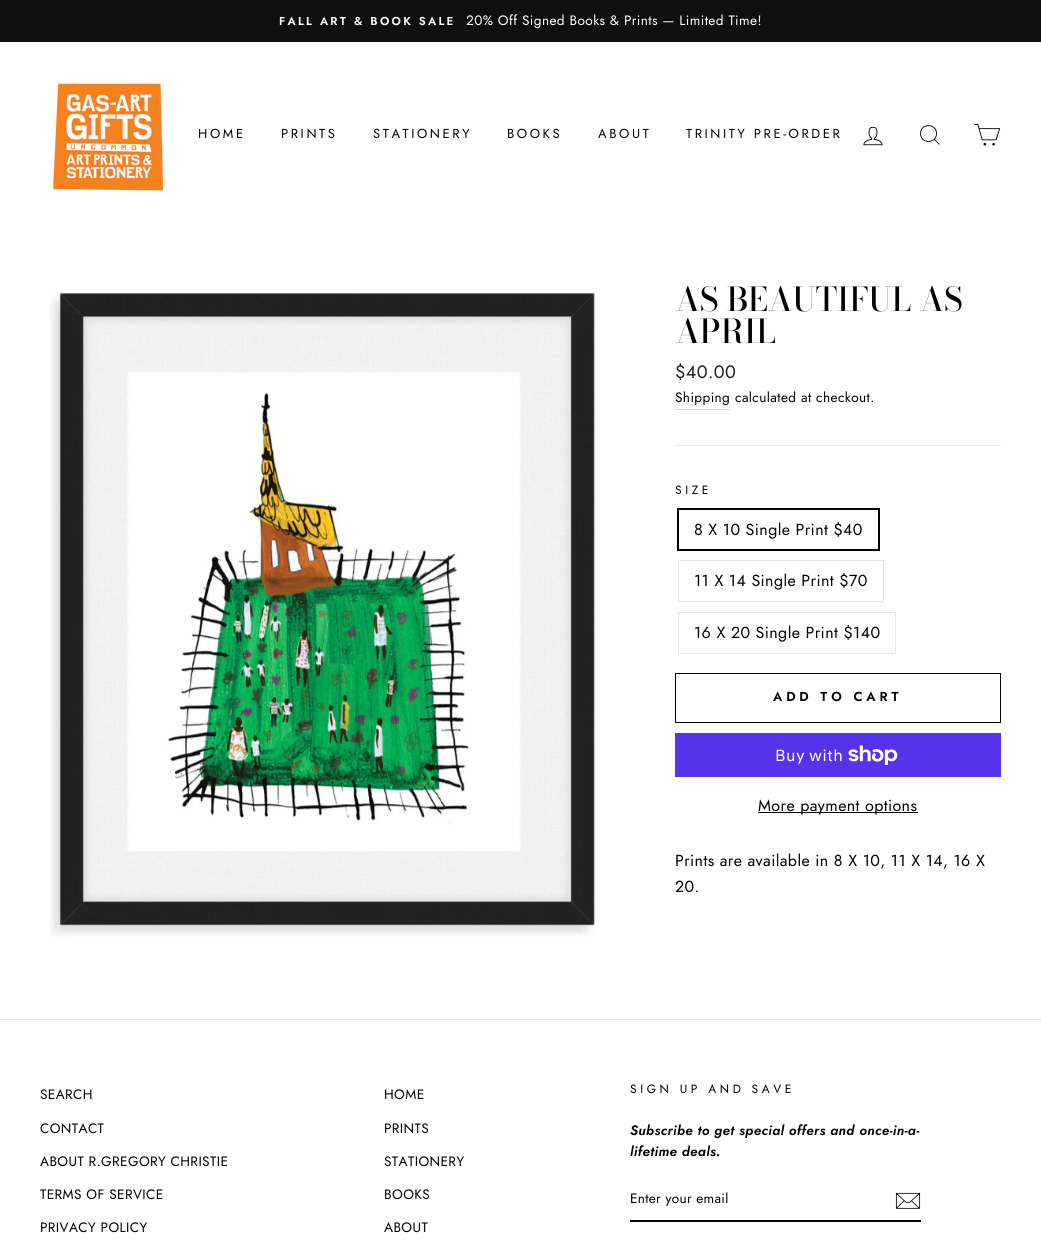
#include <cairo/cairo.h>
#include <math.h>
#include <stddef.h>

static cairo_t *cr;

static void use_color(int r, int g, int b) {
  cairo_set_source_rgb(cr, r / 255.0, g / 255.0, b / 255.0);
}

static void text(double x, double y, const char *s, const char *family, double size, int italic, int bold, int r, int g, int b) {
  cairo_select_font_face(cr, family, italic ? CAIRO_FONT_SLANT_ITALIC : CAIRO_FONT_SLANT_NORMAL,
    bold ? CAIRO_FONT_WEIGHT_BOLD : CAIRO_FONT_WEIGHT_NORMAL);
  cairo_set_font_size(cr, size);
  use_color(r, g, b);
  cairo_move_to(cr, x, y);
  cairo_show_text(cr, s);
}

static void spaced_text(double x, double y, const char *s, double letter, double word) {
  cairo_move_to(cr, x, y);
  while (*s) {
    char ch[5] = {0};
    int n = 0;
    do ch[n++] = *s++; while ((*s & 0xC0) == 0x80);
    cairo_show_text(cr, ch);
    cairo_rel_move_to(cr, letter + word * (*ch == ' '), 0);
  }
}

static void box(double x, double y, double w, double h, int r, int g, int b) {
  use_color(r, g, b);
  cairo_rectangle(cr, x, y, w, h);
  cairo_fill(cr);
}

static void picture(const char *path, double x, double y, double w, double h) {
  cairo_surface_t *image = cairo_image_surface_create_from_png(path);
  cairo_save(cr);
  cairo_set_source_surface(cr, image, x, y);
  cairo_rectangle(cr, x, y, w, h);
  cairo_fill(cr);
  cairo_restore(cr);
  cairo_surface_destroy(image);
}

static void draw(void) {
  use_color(255, 255, 255);
  cairo_paint(cr);
  box(0, 0, 1041, 42, 15, 15, 15);
  picture("img_01.png", 52, 83, 112, 108);
  picture("img_02.png", 863, 126, 20, 20);
  cairo_new_path(cr);
  cairo_move_to(cr, 936.5, 133.5);
  cairo_curve_to(cr, 936.5, 144, 920.5, 144, 920.5, 133.5);
  cairo_curve_to(cr, 920.5, 123, 936.5, 123, 936.5, 133.5);
  cairo_close_path(cr);
  cairo_move_to(cr, 939.5, 144.5);
  cairo_line_to(cr, 934.5, 139.5);
  use_color(0, 0, 0);
  cairo_set_line_width(cr, 0.9);
  cairo_stroke(cr);
  picture("img_03.png", 974, 124, 27, 22);
  picture("img_04.png", 50, 293, 546, 644);
  box(675, 409, 55, 1, 217, 217, 217);
  box(675, 445, 326, 1, 232, 232, 225);
  cairo_rectangle(cr, 678, 509, 201, 41);
  use_color(0, 0, 0);
  cairo_set_line_width(cr, 2);
  cairo_stroke(cr);
  cairo_rectangle(cr, 678.5, 560.5, 205, 41);
  use_color(232, 232, 225);
  cairo_set_line_width(cr, 1);
  cairo_stroke(cr);
  cairo_rectangle(cr, 678.5, 612.5, 217, 41);
  cairo_stroke(cr);
  cairo_rectangle(cr, 675.5, 673.5, 325, 49);
  use_color(0, 0, 0);
  cairo_stroke(cr);
  box(675, 733, 326, 44, 84, 51, 235);
  picture("img_05.png", 848, 745, 50, 20);
  box(758, 812, 160, 1, 0, 0, 0);
  box(0, 1019, 1041, 1, 232, 232, 225);
  box(630, 1220, 291, 2, 0, 0, 0);
  picture("img_06.png", 895, 1192, 26, 17);
  cairo_select_font_face(cr, "Jost SemiBold", CAIRO_FONT_SLANT_NORMAL, CAIRO_FONT_WEIGHT_NORMAL);
  cairo_set_font_size(cr, 11.5);
  use_color(255, 255, 255);
  spaced_text(279, 25, "FALL ART & BOOK SALE", 2.3, 0);
  cairo_select_font_face(cr, "Jost", CAIRO_FONT_SLANT_NORMAL, CAIRO_FONT_WEIGHT_NORMAL);
  cairo_set_font_size(cr, 13.6);
  spaced_text(466, 25, "20% Off Signed Books & Prints — Limited Time!", 0.4, 0);
  cairo_set_font_size(cr, 13);
  use_color(0, 0, 0);
  spaced_text(198, 138, "HOME", 2.6, 0);
  spaced_text(281, 138, "PRINTS", 2.6, 0);
  spaced_text(373, 138, "STATIONERY", 2.6, 0);
  spaced_text(507, 138, "BOOKS", 2.6, 0);
  spaced_text(598, 138, "ABOUT", 2.6, 0);
  spaced_text(686, 138, "TRINITY PRE-ORDER", 2.6, 0);
  text(675, 311, "AS BEAUTIFUL AS", "Bodoni Moda Medium", 32.75, 0, 0, 0, 0, 0);
  text(675, 343, "APRIL", "Bodoni Moda Medium", 32.75, 0, 0, 0, 0, 0);
  cairo_select_font_face(cr, "Jost", CAIRO_FONT_SLANT_NORMAL, CAIRO_FONT_WEIGHT_NORMAL);
  cairo_set_font_size(cr, 18);
  use_color(28, 29, 29);
  spaced_text(675, 378, "$40.00", 0.4, 0);
  cairo_set_font_size(cr, 13.6);
  use_color(0, 0, 0);
  spaced_text(675, 402, "Shipping", 0.4, 0);
  spaced_text(735, 402, "calculated at checkout.", 0.4, 0);
  cairo_set_font_size(cr, 12);
  spaced_text(675, 494, "SIZE", 3.6, 0);
  cairo_set_font_size(cr, 16);
  spaced_text(694, 535, "8 X 10 Single Print $40", 0.4, 0);
  spaced_text(694, 586, "11 X 14 Single Print $70", 0.4, 0);
  spaced_text(694, 638, "16 X 20 Single Print $140", 0.4, 0);
  cairo_select_font_face(cr, "Jost SemiBold", CAIRO_FONT_SLANT_NORMAL, CAIRO_FONT_WEIGHT_NORMAL);
  cairo_set_font_size(cr, 13);
  spaced_text(773, 701, "ADD TO CART", 3.9, 0);
  cairo_select_font_face(cr, "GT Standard", CAIRO_FONT_SLANT_NORMAL, CAIRO_FONT_WEIGHT_NORMAL);
  cairo_set_font_size(cr, 16);
  use_color(255, 255, 255);
  spaced_text(775, 761, "Buy with", 0.4, 0);
  cairo_select_font_face(cr, "Jost", CAIRO_FONT_SLANT_NORMAL, CAIRO_FONT_WEIGHT_NORMAL);
  use_color(0, 0, 0);
  spaced_text(758, 811, "More payment options", 0.4, 0);
  spaced_text(675, 866, "Prints are available in 8 X 10, 11 X 14, 16 X", 0.4, 0);
  spaced_text(675, 892, "20.", 0.4, 0);
  cairo_set_font_size(cr, 13.6);
  spaced_text(40, 1099, "SEARCH", 0.4, 0);
  spaced_text(40, 1133, "CONTACT", 0.4, 0);
  spaced_text(40, 1166, "ABOUT R.GREGORY CHRISTIE", 0.4, 0);
  spaced_text(40, 1199, "TERMS OF SERVICE", 0.4, 0);
  spaced_text(40, 1232, "PRIVACY POLICY", 0.4, 0);
  spaced_text(384, 1099, "HOME", 0.4, 0);
  spaced_text(384, 1133, "PRINTS", 0.4, 0);
  spaced_text(384, 1166, "STATIONERY", 0.4, 0);
  spaced_text(384, 1199, "BOOKS", 0.4, 0);
  spaced_text(384, 1232, "ABOUT", 0.4, 0);
  cairo_set_font_size(cr, 12);
  spaced_text(630, 1093, "SIGN UP AND SAVE", 3.6, 0);
  cairo_select_font_face(cr, "Jost SemiBold", CAIRO_FONT_SLANT_ITALIC, CAIRO_FONT_WEIGHT_NORMAL);
  cairo_set_font_size(cr, 13.6);
  spaced_text(630, 1135, "Subscribe to get special offers and once-in-a-", 0.4, 0);
  spaced_text(630, 1156, "lifetime deals.", 0.4, 0);
  cairo_select_font_face(cr, "Jost", CAIRO_FONT_SLANT_NORMAL, CAIRO_FONT_WEIGHT_NORMAL);
  spaced_text(630, 1203, "Enter your email", 0.3, 0);
}

int main(void) {
  cairo_surface_t *surface = cairo_image_surface_create(CAIRO_FORMAT_RGB24, 1041, 1256);
  cr = cairo_create(surface);
  cairo_font_options_t *options = cairo_font_options_create();
  cairo_font_options_set_hint_metrics(options, CAIRO_HINT_METRICS_OFF);
  cairo_font_options_set_hint_style(options, CAIRO_HINT_STYLE_NONE);
  cairo_set_font_options(cr, options);
  cairo_set_miter_limit(cr, 4);
  draw();
  cairo_surface_write_to_png(surface, "out.png");
  cairo_font_options_destroy(options);
  cairo_destroy(cr);
  cairo_surface_destroy(surface);
  return 0;
}
